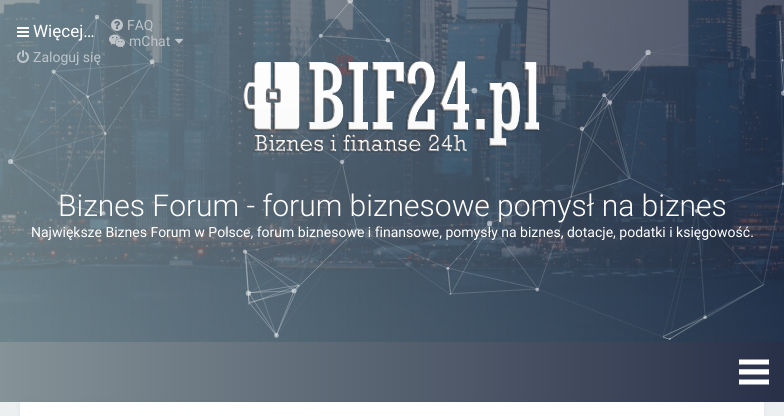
#include <cairo/cairo.h>
#include <math.h>
#include <stddef.h>

static cairo_t *cr;

static void use_color(int r, int g, int b) {
  cairo_set_source_rgb(cr, r / 255.0, g / 255.0, b / 255.0);
}

static void text(double x, double y, const char *s, const char *family, double size, int italic, int bold, int r, int g, int b) {
  cairo_select_font_face(cr, family, italic ? CAIRO_FONT_SLANT_ITALIC : CAIRO_FONT_SLANT_NORMAL,
    bold ? CAIRO_FONT_WEIGHT_BOLD : CAIRO_FONT_WEIGHT_NORMAL);
  cairo_set_font_size(cr, size);
  use_color(r, g, b);
  cairo_move_to(cr, x, y);
  cairo_show_text(cr, s);
}

static void box(double x, double y, double w, double h, int r, int g, int b) {
  use_color(r, g, b);
  cairo_rectangle(cr, x, y, w, h);
  cairo_fill(cr);
}

static void round_rect(double x, double y, double w, double h, double r) {
  cairo_new_sub_path(cr);
  cairo_arc(cr, x + w - r, y + h - r, r, 0, M_PI / 2);
  cairo_arc(cr, x + r, y + h - r, r, M_PI / 2, M_PI);
  cairo_arc(cr, x + r, y + r, r, M_PI, 1.5 * M_PI);
  cairo_arc(cr, x + w - r, y + r, r, 1.5 * M_PI, 2 * M_PI);
  cairo_close_path(cr);
}

static void shadow(double x, double y, double w, double h, double r, double blur, double alpha) {
  cairo_push_group_with_content(cr, CAIRO_CONTENT_ALPHA);
  cairo_set_operator(cr, CAIRO_OPERATOR_SOURCE);
  for (int i = 15; i >= -15 && fmin(w, h) + blur * i / 3 > 0; i -= 2) {
    double e = blur * i / 6;
    cairo_set_source_rgba(cr, 0, 0, 0, alpha * erfc((i - 1) / 8.5) / 2);
    round_rect(x - e, y - e, w + 2 * e, h + 2 * e, fmax(0, fmin(r + e + blur * .6, fmin(w, h) / 2 + e)));
    cairo_fill(cr);
  }
  cairo_pattern_t *soft = cairo_pop_group(cr);
  cairo_mask(cr, soft);
  cairo_pattern_destroy(soft);
}

static void picture(const char *path, double x, double y, double w, double h) {
  cairo_surface_t *image = cairo_image_surface_create_from_png(path);
  cairo_save(cr);
  cairo_set_source_surface(cr, image, x, y);
  cairo_rectangle(cr, x, y, w, h);
  cairo_fill(cr);
  cairo_restore(cr);
  cairo_surface_destroy(image);
}

static void draw(void) {
  cairo_pattern_t *gradient;
  use_color(236, 240, 241);
  cairo_paint(cr);
  picture("img_01.png", 0, 0, 784, 342);
  picture("img_07.png", 8, 0, 776, 340);
  picture("img_02.png", 111, 19, 12, 12);
  picture("img_03.png", 109, 34, 16, 14);
  picture("img_04.png", 175, 39, 8, 5);
  picture("img_05.png", 17, 50, 12, 13);
  picture("img_06.png", 17, 27, 12, 10);
  picture("img_08.png", 243, 61, 297, 92);
  gradient = cairo_pattern_create_linear(0, 372, 784, 372);
  cairo_pattern_add_color_stop_rgba(gradient, 0, 0.522, 0.576, 0.596, 1);
  cairo_pattern_add_color_stop_rgba(gradient, 1, 0.157, 0.188, 0.282, 1);
  cairo_set_source(cr, gradient);
  cairo_pattern_destroy(gradient);
  cairo_rectangle(cr, 0, 342, 784, 60);
  cairo_fill(cr);
  picture("img_09.png", 739, 359, 30, 26);
  use_color(0, 0, 0);
  shadow(20, 402, 744, 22, 0, 2.5, 0.05);
  box(20, 402, 744, 14, 255, 255, 255);
  text(127, 30, "FAQ", "Roboto", 14, 0, 0, 190, 196, 201);
  text(129, 46, "mChat", "Roboto", 14, 0, 0, 190, 196, 201);
  text(33, 62, "Zaloguj się", "Roboto", 14, 0, 0, 190, 196, 201);
  text(33, 37, "Więcej…", "Roboto", 17, 0, 0, 255, 255, 255);
  text(58, 216, "Biznes Forum - forum biznesowe pomysł na biznes", "Roboto Light", 30, 0, 0, 255, 255, 255);
  text(31, 237, "Największe Biznes Forum w Polsce, forum biznesowe i finansowe, pomysły na biznes, dotacje, podatki i księgowość.", "Roboto", 14, 0, 0, 255, 255, 255);
}

int main(void) {
  cairo_surface_t *surface = cairo_image_surface_create(CAIRO_FORMAT_RGB24, 784, 416);
  cr = cairo_create(surface);
  cairo_font_options_t *options = cairo_font_options_create();
  cairo_font_options_set_hint_metrics(options, CAIRO_HINT_METRICS_OFF);
  cairo_font_options_set_hint_style(options, CAIRO_HINT_STYLE_NONE);
  cairo_set_font_options(cr, options);
  cairo_set_miter_limit(cr, 4);
  draw();
  cairo_surface_write_to_png(surface, "out.png");
  cairo_font_options_destroy(options);
  cairo_destroy(cr);
  cairo_surface_destroy(surface);
  return 0;
}
